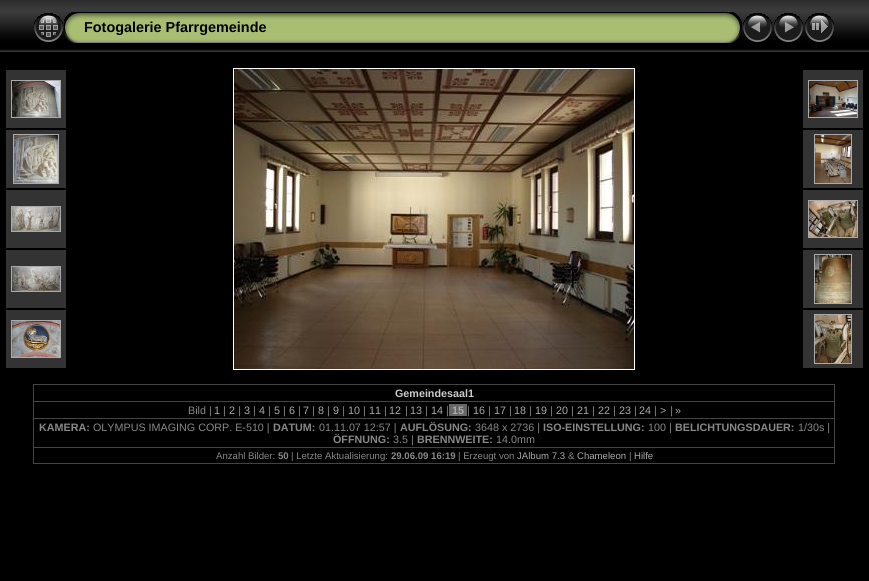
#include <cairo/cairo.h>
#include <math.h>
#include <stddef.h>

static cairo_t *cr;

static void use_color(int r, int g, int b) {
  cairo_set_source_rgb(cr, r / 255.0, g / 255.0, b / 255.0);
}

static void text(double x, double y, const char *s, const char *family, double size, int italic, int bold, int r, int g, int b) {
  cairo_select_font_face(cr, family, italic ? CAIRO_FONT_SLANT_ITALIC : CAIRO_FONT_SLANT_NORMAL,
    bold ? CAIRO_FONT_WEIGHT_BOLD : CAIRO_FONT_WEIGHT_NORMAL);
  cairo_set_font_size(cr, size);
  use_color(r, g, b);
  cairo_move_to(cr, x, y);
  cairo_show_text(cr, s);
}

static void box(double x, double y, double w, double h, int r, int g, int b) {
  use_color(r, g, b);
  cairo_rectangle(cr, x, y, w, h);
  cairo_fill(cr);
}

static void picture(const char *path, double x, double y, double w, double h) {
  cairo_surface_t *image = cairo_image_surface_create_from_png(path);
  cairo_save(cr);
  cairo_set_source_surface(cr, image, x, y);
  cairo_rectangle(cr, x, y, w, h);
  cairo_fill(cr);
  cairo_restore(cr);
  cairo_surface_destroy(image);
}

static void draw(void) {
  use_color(0, 0, 0);
  cairo_paint(cr);
  picture("img_01.png", 0, 0, 869, 52);
  picture("img_02.png", 34, 13, 29, 29);
  picture("img_03.png", 64, 12, 20, 31);
  picture("img_04.png", 84, 12, 638, 31);
  picture("img_05.png", 722, 12, 20, 31);
  picture("img_06.png", 743, 13, 29, 29);
  picture("img_07.png", 774, 13, 29, 29);
  picture("img_08.png", 805, 13, 29, 29);
  box(6, 70, 60, 58, 51, 51, 51);
  cairo_rectangle(cr, 11.5, 80.5, 49, 37);
  use_color(170, 170, 170);
  cairo_set_line_width(cr, 1);
  cairo_stroke(cr);
  picture("img_09.png", 12, 81, 48, 36);
  box(6, 130, 60, 58, 51, 51, 51);
  cairo_rectangle(cr, 13.5, 134.5, 45, 49);
  use_color(170, 170, 170);
  cairo_stroke(cr);
  picture("img_10.png", 14, 135, 44, 48);
  box(6, 190, 60, 58, 51, 51, 51);
  cairo_rectangle(cr, 11.5, 206.5, 49, 25);
  use_color(170, 170, 170);
  cairo_stroke(cr);
  picture("img_11.png", 12, 207, 48, 24);
  box(6, 250, 60, 58, 51, 51, 51);
  cairo_rectangle(cr, 11.5, 266.5, 49, 25);
  use_color(170, 170, 170);
  cairo_stroke(cr);
  picture("img_12.png", 12, 267, 48, 24);
  box(6, 310, 60, 58, 51, 51, 51);
  cairo_rectangle(cr, 11.5, 320.5, 49, 37);
  use_color(170, 170, 170);
  cairo_stroke(cr);
  picture("img_13.png", 12, 321, 48, 36);
  cairo_rectangle(cr, 233.5, 68.5, 401, 301);
  use_color(255, 255, 255);
  cairo_stroke(cr);
  picture("img_14.png", 234, 69, 400, 300);
  box(803, 70, 60, 58, 51, 51, 51);
  cairo_rectangle(cr, 808.5, 80.5, 49, 37);
  use_color(170, 170, 170);
  cairo_stroke(cr);
  picture("img_15.png", 809, 81, 48, 36);
  box(803, 130, 60, 58, 51, 51, 51);
  cairo_rectangle(cr, 814.5, 134.5, 37, 49);
  use_color(170, 170, 170);
  cairo_stroke(cr);
  picture("img_16.png", 815, 135, 36, 48);
  box(803, 190, 60, 58, 51, 51, 51);
  cairo_rectangle(cr, 808.5, 200.5, 49, 37);
  use_color(170, 170, 170);
  cairo_stroke(cr);
  picture("img_17.png", 809, 201, 48, 36);
  box(803, 250, 60, 58, 51, 51, 51);
  cairo_rectangle(cr, 814.5, 254.5, 37, 49);
  use_color(170, 170, 170);
  cairo_stroke(cr);
  picture("img_18.png", 815, 255, 36, 48);
  box(803, 310, 60, 58, 51, 51, 51);
  cairo_rectangle(cr, 814.5, 314.5, 37, 49);
  use_color(170, 170, 170);
  cairo_stroke(cr);
  picture("img_19.png", 815, 315, 36, 48);
  box(33, 384, 802, 1, 68, 68, 68);
  box(834, 384, 1, 80, 68, 68, 68);
  box(33, 463, 802, 1, 68, 68, 68);
  box(33, 384, 1, 80, 68, 68, 68);
  box(33, 401, 802, 1, 68, 68, 68);
  box(449, 404, 18, 12, 102, 102, 102);
  box(33, 418, 802, 1, 68, 68, 68);
  box(33, 447, 802, 1, 68, 68, 68);
  text(84, 32, "Fotogalerie Pfarrgemeinde", "Liberation Sans", 14.4, 0, 1, 0, 0, 0);
  text(395, 397, "Gemeindesaal1", "Liberation Sans", 10.75, 0, 1, 204, 204, 204);
  text(188, 414, "Bild |", "Liberation Sans", 10.75, 0, 0, 136, 136, 136);
  text(214, 414, "1", "Liberation Sans", 10.75, 0, 0, 170, 170, 170);
  text(223, 414, "|", "Liberation Sans", 10.75, 0, 0, 136, 136, 136);
  text(229, 414, "2", "Liberation Sans", 10.75, 0, 0, 170, 170, 170);
  text(238, 414, "|", "Liberation Sans", 10.75, 0, 0, 136, 136, 136);
  text(244, 414, "3", "Liberation Sans", 10.75, 0, 0, 170, 170, 170);
  text(253, 414, "|", "Liberation Sans", 10.75, 0, 0, 136, 136, 136);
  text(259, 414, "4", "Liberation Sans", 10.75, 0, 0, 170, 170, 170);
  text(268, 414, "|", "Liberation Sans", 10.75, 0, 0, 136, 136, 136);
  text(274, 414, "5", "Liberation Sans", 10.75, 0, 0, 170, 170, 170);
  text(283, 414, "|", "Liberation Sans", 10.75, 0, 0, 136, 136, 136);
  text(289, 414, "6", "Liberation Sans", 10.75, 0, 0, 170, 170, 170);
  text(298, 414, "|", "Liberation Sans", 10.75, 0, 0, 136, 136, 136);
  text(303, 414, "7", "Liberation Sans", 10.75, 0, 0, 170, 170, 170);
  text(312, 414, "|", "Liberation Sans", 10.75, 0, 0, 136, 136, 136);
  text(318, 414, "8", "Liberation Sans", 10.75, 0, 0, 170, 170, 170);
  text(327, 414, "|", "Liberation Sans", 10.75, 0, 0, 136, 136, 136);
  text(333, 414, "9", "Liberation Sans", 10.75, 0, 0, 170, 170, 170);
  text(342, 414, "|", "Liberation Sans", 10.75, 0, 0, 136, 136, 136);
  text(348, 414, "10", "Liberation Sans", 10.75, 0, 0, 170, 170, 170);
  text(363, 414, "|", "Liberation Sans", 10.75, 0, 0, 136, 136, 136);
  text(369, 414, "11", "Liberation Sans", 10.75, 0, 0, 170, 170, 170);
  text(384, 414, "|", "Liberation Sans", 10.75, 0, 0, 136, 136, 136);
  text(389, 414, "12", "Liberation Sans", 10.75, 0, 0, 170, 170, 170);
  text(405, 414, "|", "Liberation Sans", 10.75, 0, 0, 136, 136, 136);
  text(410, 414, "13", "Liberation Sans", 10.75, 0, 0, 170, 170, 170);
  text(425, 414, "|", "Liberation Sans", 10.75, 0, 0, 136, 136, 136);
  text(431, 414, "14", "Liberation Sans", 10.75, 0, 0, 170, 170, 170);
  text(446, 414, "|", "Liberation Sans", 10.75, 0, 0, 136, 136, 136);
  text(452, 414, "15", "Liberation Sans", 10.75, 0, 1, 170, 170, 170);
  text(467, 414, "|", "Liberation Sans", 10.75, 0, 0, 136, 136, 136);
  text(473, 414, "16", "Liberation Sans", 10.75, 0, 0, 170, 170, 170);
  text(488, 414, "|", "Liberation Sans", 10.75, 0, 0, 136, 136, 136);
  text(494, 414, "17", "Liberation Sans", 10.75, 0, 0, 170, 170, 170);
  text(509, 414, "|", "Liberation Sans", 10.75, 0, 0, 136, 136, 136);
  text(514, 414, "18", "Liberation Sans", 10.75, 0, 0, 170, 170, 170);
  text(529, 414, "|", "Liberation Sans", 10.75, 0, 0, 136, 136, 136);
  text(535, 414, "19", "Liberation Sans", 10.75, 0, 0, 170, 170, 170);
  text(550, 414, "|", "Liberation Sans", 10.75, 0, 0, 136, 136, 136);
  text(556, 414, "20", "Liberation Sans", 10.75, 0, 0, 170, 170, 170);
  text(571, 414, "|", "Liberation Sans", 10.75, 0, 0, 136, 136, 136);
  text(577, 414, "21", "Liberation Sans", 10.75, 0, 0, 170, 170, 170);
  text(592, 414, "|", "Liberation Sans", 10.75, 0, 0, 136, 136, 136);
  text(598, 414, "22", "Liberation Sans", 10.75, 0, 0, 170, 170, 170);
  text(613, 414, "|", "Liberation Sans", 10.75, 0, 0, 136, 136, 136);
  text(619, 414, "23", "Liberation Sans", 10.75, 0, 0, 170, 170, 170);
  text(634, 414, "|", "Liberation Sans", 10.75, 0, 0, 136, 136, 136);
  text(639, 414, "24", "Liberation Sans", 10.75, 0, 0, 170, 170, 170);
  text(654, 414, "|", "Liberation Sans", 10.75, 0, 0, 136, 136, 136);
  text(660, 414, ">", "Liberation Sans", 10.75, 0, 0, 170, 170, 170);
  text(670, 414, "|", "Liberation Sans", 10.75, 0, 0, 136, 136, 136);
  text(675, 414, "»", "Liberation Sans", 10.75, 0, 0, 170, 170, 170);
  text(39, 431, "KAMERA:", "Liberation Sans", 10.75, 0, 1, 136, 136, 136);
  text(93, 431, "OLYMPUS IMAGING CORP. E-510 |", "Liberation Sans", 10.75, 0, 0, 136, 136, 136);
  text(273, 431, "DATUM:", "Liberation Sans", 10.75, 0, 1, 136, 136, 136);
  text(319, 431, "01.11.07 12:57 |", "Liberation Sans", 10.75, 0, 0, 136, 136, 136);
  text(400, 431, "AUFLÖSUNG:", "Liberation Sans", 10.75, 0, 1, 136, 136, 136);
  text(475, 431, "3648 x 2736 |", "Liberation Sans", 10.75, 0, 0, 136, 136, 136);
  text(543, 431, "ISO-EINSTELLUNG:", "Liberation Sans", 10.75, 0, 1, 136, 136, 136);
  text(648, 431, "100 |", "Liberation Sans", 10.75, 0, 0, 136, 136, 136);
  text(675, 431, "BELICHTUNGSDAUER:", "Liberation Sans", 10.75, 0, 1, 136, 136, 136);
  text(798, 431, "1/30s |", "Liberation Sans", 10.75, 0, 0, 136, 136, 136);
  text(333, 443, "ÖFFNUNG:", "Liberation Sans", 10.75, 0, 1, 136, 136, 136);
  text(393, 443, "3.5 |", "Liberation Sans", 10.75, 0, 0, 136, 136, 136);
  text(417, 443, "BRENNWEITE:", "Liberation Sans", 10.75, 0, 1, 136, 136, 136);
  text(496, 443, "14.0mm", "Liberation Sans", 10.75, 0, 0, 136, 136, 136);
  text(216, 459, "Anzahl Bilder:", "Liberation Sans", 9.6, 0, 0, 136, 136, 136);
  text(278, 459, "50", "Liberation Sans", 9.6, 0, 1, 136, 136, 136);
  text(291, 459, "| Letzte Aktualisierung:", "Liberation Sans", 9.6, 0, 0, 136, 136, 136);
  text(391, 459, "29.06.09 16:19", "Liberation Sans", 9.6, 0, 1, 136, 136, 136);
  text(458, 459, "| Erzeugt von", "Liberation Sans", 9.6, 0, 0, 136, 136, 136);
  text(517, 459, "JAlbum 7.3", "Liberation Sans", 9.6, 0, 0, 170, 170, 170);
  text(568, 459, "&", "Liberation Sans", 9.6, 0, 0, 136, 136, 136);
  text(577, 459, "Chameleon", "Liberation Sans", 9.6, 0, 0, 170, 170, 170);
  text(629, 459, "|", "Liberation Sans", 9.6, 0, 0, 136, 136, 136);
  text(634, 459, "Hilfe", "Liberation Sans", 9.6, 0, 0, 170, 170, 170);
}

int main(void) {
  cairo_surface_t *surface = cairo_image_surface_create(CAIRO_FORMAT_RGB24, 869, 581);
  cr = cairo_create(surface);
  cairo_font_options_t *options = cairo_font_options_create();
  cairo_font_options_set_hint_metrics(options, CAIRO_HINT_METRICS_OFF);
  cairo_font_options_set_hint_style(options, CAIRO_HINT_STYLE_NONE);
  cairo_set_font_options(cr, options);
  cairo_set_miter_limit(cr, 4);
  draw();
  cairo_surface_write_to_png(surface, "out.png");
  cairo_font_options_destroy(options);
  cairo_destroy(cr);
  cairo_surface_destroy(surface);
  return 0;
}
